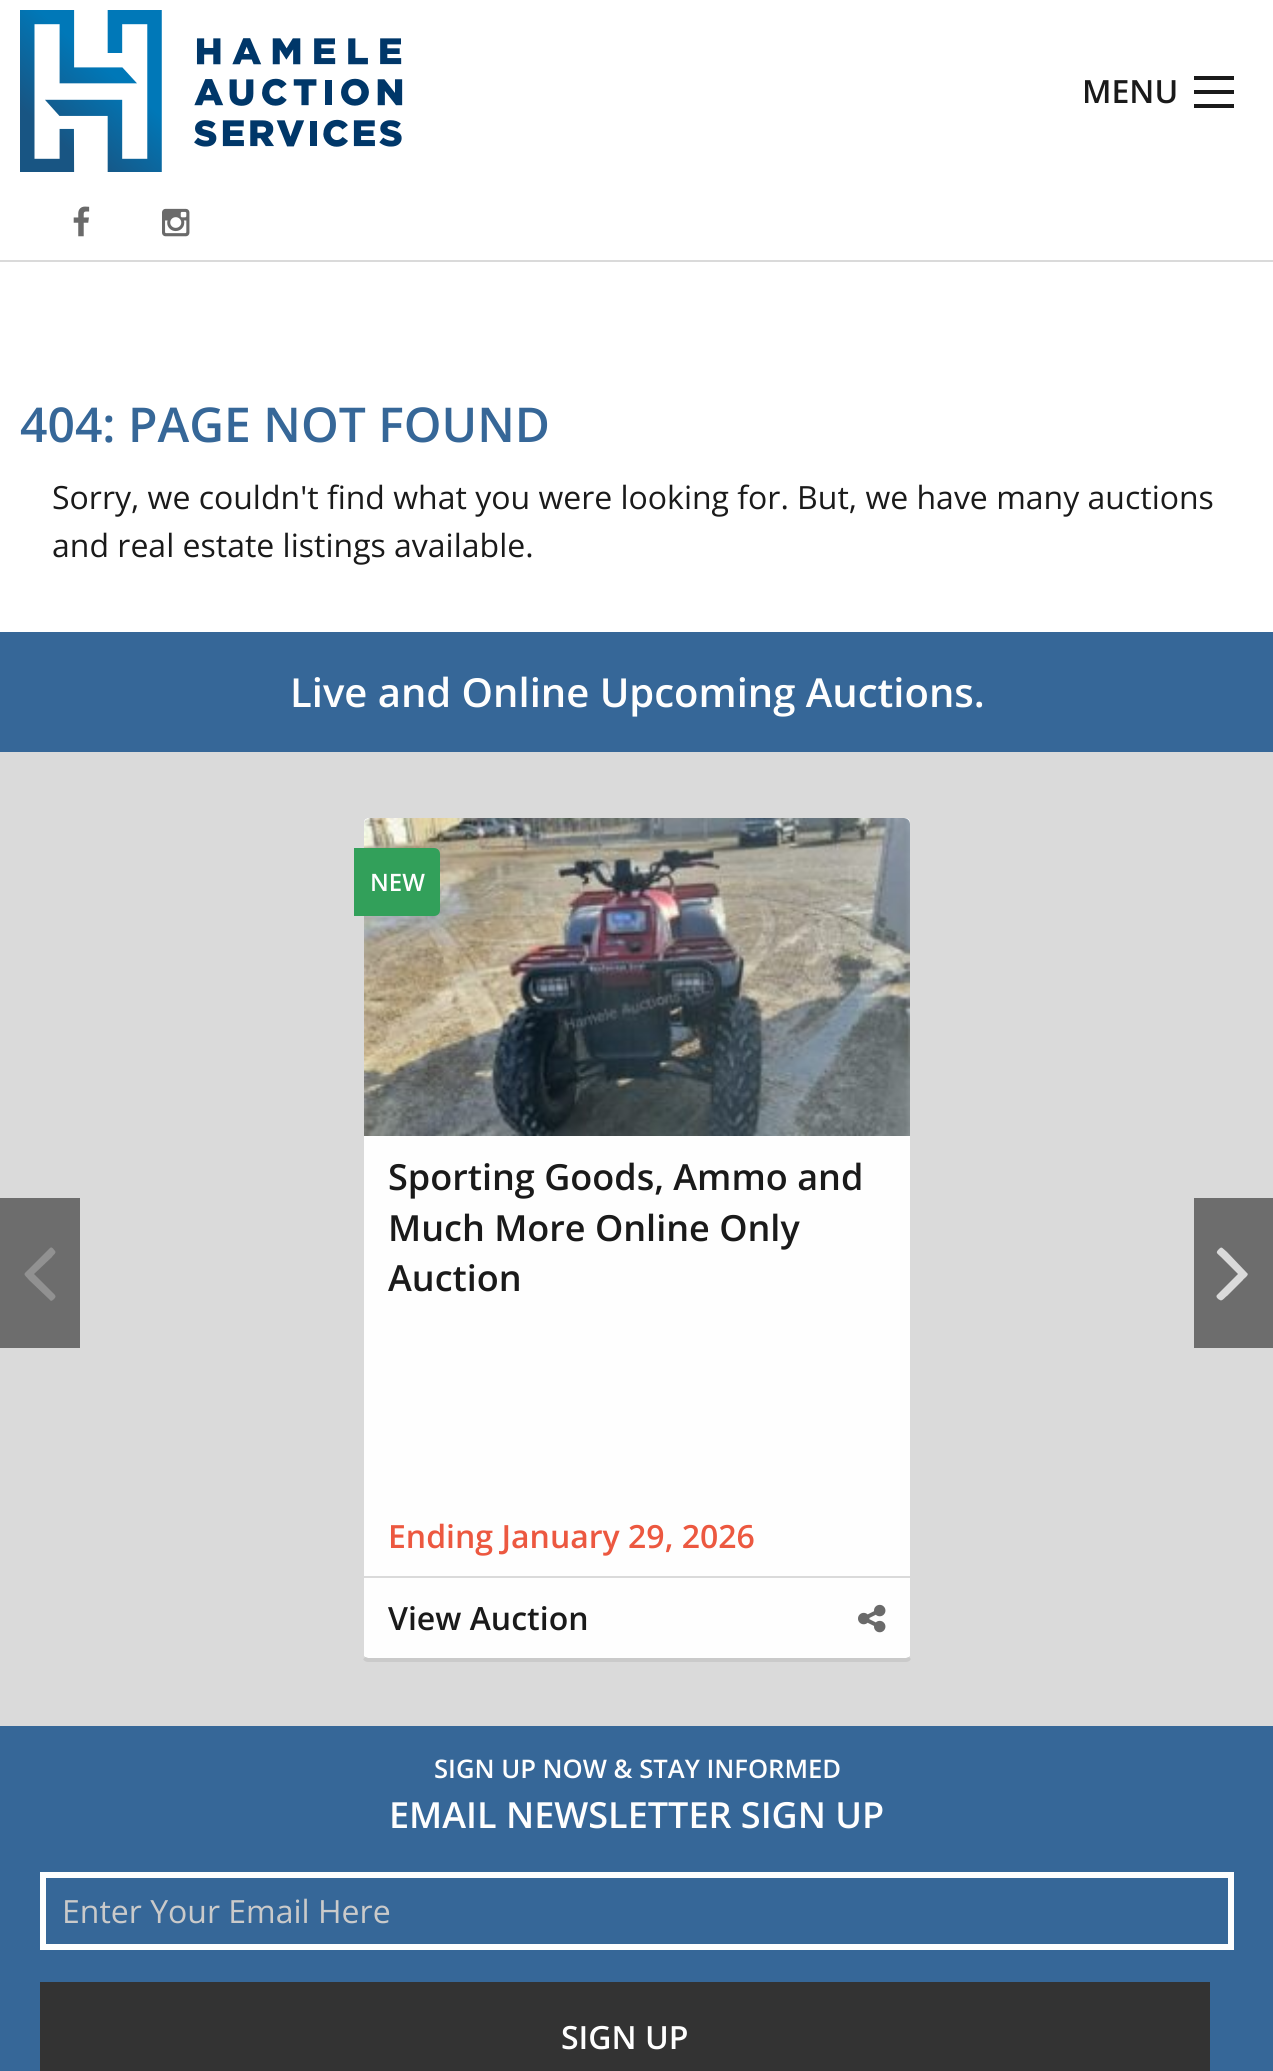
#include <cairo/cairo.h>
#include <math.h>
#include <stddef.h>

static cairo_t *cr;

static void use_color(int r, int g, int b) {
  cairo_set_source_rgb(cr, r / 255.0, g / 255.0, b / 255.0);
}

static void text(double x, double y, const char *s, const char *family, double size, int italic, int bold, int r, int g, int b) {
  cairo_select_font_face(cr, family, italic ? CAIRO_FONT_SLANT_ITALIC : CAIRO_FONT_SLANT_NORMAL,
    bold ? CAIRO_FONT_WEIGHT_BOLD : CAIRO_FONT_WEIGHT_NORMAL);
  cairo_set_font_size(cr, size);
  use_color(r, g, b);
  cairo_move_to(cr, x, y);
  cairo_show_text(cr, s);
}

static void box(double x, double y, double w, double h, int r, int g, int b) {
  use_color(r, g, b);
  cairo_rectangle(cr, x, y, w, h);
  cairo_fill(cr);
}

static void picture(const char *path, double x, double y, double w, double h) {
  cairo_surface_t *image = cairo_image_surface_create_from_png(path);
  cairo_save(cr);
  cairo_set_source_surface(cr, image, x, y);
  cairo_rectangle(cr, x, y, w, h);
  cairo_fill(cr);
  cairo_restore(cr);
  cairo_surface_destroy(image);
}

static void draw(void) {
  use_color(255, 255, 255);
  cairo_paint(cr);
  picture("img_01.png", 20, 10, 383, 162);
  box(1194, 104, 40, 4, 26, 26, 26);
  box(1194, 90, 40, 4, 26, 26, 26);
  box(1194, 76, 40, 4, 26, 26, 26);
  box(0, 260, 1273, 2, 218, 218, 218);
  picture("img_02.png", 73, 206, 17, 31);
  picture("img_03.png", 162, 208, 28, 29);
  box(0, 752, 1273, 974, 218, 218, 218);
  box(0, 632, 1273, 120, 54, 103, 152);
  box(0, 1198, 80, 150, 109, 109, 109);
  use_color(145, 145, 145);
  cairo_new_path(cr);
  cairo_move_to(cr, 55, 1251);
  cairo_curve_to(cr, 57, 1253, 52, 1256, 52, 1257);
  cairo_line_to(cr, 34, 1274);
  cairo_line_to(cr, 52, 1292);
  cairo_curve_to(cr, 55, 1295, 57, 1296, 54, 1299);
  cairo_curve_to(cr, 53, 1300, 51, 1302, 50, 1300);
  cairo_line_to(cr, 29, 1280);
  cairo_curve_to(cr, 23, 1273, 23, 1275, 29, 1269);
  cairo_line_to(cr, 50, 1248);
  cairo_curve_to(cr, 52, 1246, 54, 1250, 55, 1251);
  cairo_close_path(cr);
  cairo_fill(cr);
  use_color(254, 254, 254);
  cairo_new_path(cr);
  cairo_move_to(cr, 368, 818);
  cairo_line_to(cr, 906, 818);
  cairo_curve_to(cr, 908, 818, 910, 820, 910, 822);
  cairo_line_to(cr, 910, 1656);
  cairo_curve_to(cr, 910, 1657, 908, 1658, 906, 1658);
  cairo_line_to(cr, 368, 1658);
  cairo_curve_to(cr, 366, 1658, 364, 1657, 364, 1656);
  cairo_line_to(cr, 364, 822);
  cairo_curve_to(cr, 364, 820, 366, 818, 368, 818);
  cairo_close_path(cr);
  cairo_fill(cr);
  use_color(218, 218, 218);
  cairo_new_path(cr);
  cairo_move_to(cr, 368, 816);
  cairo_curve_to(cr, 366, 816, 365, 817, 364, 818);
  cairo_line_to(cr, 365, 819);
  cairo_line_to(cr, 368, 818);
  cairo_line_to(cr, 906, 818);
  cairo_line_to(cr, 909, 819);
  cairo_line_to(cr, 910, 818);
  cairo_curve_to(cr, 909, 817, 908, 816, 906, 816);
  cairo_close_path(cr);
  cairo_fill(cr);
  cairo_new_path(cr);
  cairo_move_to(cr, 912, 1656);
  cairo_line_to(cr, 912, 822);
  cairo_curve_to(cr, 912, 820, 911, 819, 910, 818);
  cairo_line_to(cr, 909, 819);
  cairo_curve_to(cr, 910, 820, 910, 821, 910, 822);
  cairo_line_to(cr, 910, 1656);
  cairo_line_to(cr, 909, 1657);
  cairo_line_to(cr, 911, 1659);
  cairo_close_path(cr);
  cairo_fill(cr);
  use_color(202, 202, 202);
  cairo_new_path(cr);
  cairo_move_to(cr, 368, 1662);
  cairo_line_to(cr, 906, 1662);
  cairo_curve_to(cr, 908, 1662, 910, 1661, 911, 1659);
  cairo_line_to(cr, 909, 1657);
  cairo_line_to(cr, 906, 1658);
  cairo_line_to(cr, 368, 1658);
  cairo_line_to(cr, 365, 1657);
  cairo_line_to(cr, 363, 1659);
  cairo_curve_to(cr, 364, 1661, 366, 1662, 368, 1662);
  cairo_close_path(cr);
  cairo_fill(cr);
  use_color(218, 218, 218);
  cairo_new_path(cr);
  cairo_move_to(cr, 362, 822);
  cairo_line_to(cr, 362, 1656);
  cairo_line_to(cr, 363, 1659);
  cairo_line_to(cr, 365, 1657);
  cairo_line_to(cr, 364, 1656);
  cairo_line_to(cr, 364, 822);
  cairo_curve_to(cr, 364, 821, 364, 820, 365, 819);
  cairo_line_to(cr, 364, 818);
  cairo_curve_to(cr, 363, 819, 362, 820, 362, 822);
  cairo_close_path(cr);
  cairo_fill(cr);
  picture("img_04.png", 364, 818, 546, 318);
  use_color(50, 160, 90);
  cairo_new_path(cr);
  cairo_move_to(cr, 354, 848);
  cairo_line_to(cr, 434, 848);
  cairo_curve_to(cr, 437.5, 848, 440, 850.5, 440, 854);
  cairo_line_to(cr, 440, 910);
  cairo_curve_to(cr, 440, 913.5, 437.5, 916, 434, 916);
  cairo_line_to(cr, 354, 916);
  cairo_close_path(cr);
  cairo_fill(cr);
  box(364, 1576, 546, 2, 218, 218, 218);
  picture("img_05.png", 858, 1604, 28, 29);
  box(1194, 1198, 79, 150, 109, 109, 109);
  use_color(218, 218, 218);
  cairo_new_path(cr);
  cairo_move_to(cr, 1247, 1273);
  cairo_curve_to(cr, 1250, 1275, 1243, 1279, 1243, 1280);
  cairo_line_to(cr, 1227, 1296);
  cairo_curve_to(cr, 1226, 1296, 1222, 1302, 1220, 1300);
  cairo_curve_to(cr, 1219, 1300, 1215, 1297, 1217, 1295);
  cairo_line_to(cr, 1238, 1274);
  cairo_line_to(cr, 1221, 1257);
  cairo_curve_to(cr, 1217, 1253, 1215, 1253, 1219, 1249);
  cairo_curve_to(cr, 1222, 1246, 1222, 1248, 1227, 1252);
  cairo_close_path(cr);
  cairo_fill(cr);
  box(0, 1726, 1273, 345, 54, 103, 152);
  cairo_rectangle(cr, 43, 1875, 1188, 72);
  use_color(254, 254, 254);
  cairo_set_line_width(cr, 6);
  cairo_stroke(cr);
  box(40, 1982, 1170, 89, 51, 51, 51);
  text(1082, 103, "MENU", "Open Sans SemiBold", 32, 0, 0, 26, 26, 26);
  text(20, 442, "404: PAGE NOT FOUND", "Open Sans SemiBold", 48, 0, 0, 54, 103, 152);
  text(52, 509, "Sorry, we couldn't find what you were looking for. But, we have many auctions", "Open Sans", 32, 0, 0, 26, 26, 26);
  text(52, 557, "and real estate listings available.", "Open Sans", 32, 0, 0, 26, 26, 26);
  text(290, 707, "Live and Online Upcoming Auctions.", "Open Sans SemiBold", 40, 0, 0, 254, 254, 254);
  text(370, 891, "NEW", "Open Sans SemiBold", 24, 0, 0, 254, 254, 254);
  text(388, 1190, "Sporting Goods, Ammo and", "Open Sans SemiBold", 36, 0, 0, 26, 26, 26);
  text(388, 1241, "Much More Online Only", "Open Sans SemiBold", 36, 0, 0, 26, 26, 26);
  text(388, 1291, "Auction", "Open Sans SemiBold", 36, 0, 0, 26, 26, 26);
  text(388, 1548, "Ending January 29, 2026", "Open Sans SemiBold", 32, 0, 0, 236, 88, 64);
  text(388, 1630, "View Auction", "Open Sans SemiBold", 32, 0, 0, 26, 26, 26);
  text(434, 1778, "SIGN UP NOW & STAY INFORMED", "Open Sans SemiBold", 25.6, 0, 0, 254, 254, 254);
  text(389, 1828, "EMAIL NEWSLETTER SIGN UP", "Open Sans SemiBold", 36, 0, 0, 254, 254, 254);
  text(62, 1923, "Enter Your Email Here", "Open Sans", 32, 0, 0, 202, 202, 202);
  text(561, 2049, "SIGN UP", "Open Sans SemiBold", 32, 0, 0, 254, 254, 254);
}

int main(void) {
  cairo_surface_t *surface = cairo_image_surface_create(CAIRO_FORMAT_RGB24, 1273, 2071);
  cr = cairo_create(surface);
  cairo_font_options_t *options = cairo_font_options_create();
  cairo_font_options_set_hint_metrics(options, CAIRO_HINT_METRICS_OFF);
  cairo_font_options_set_hint_style(options, CAIRO_HINT_STYLE_NONE);
  cairo_set_font_options(cr, options);
  cairo_set_miter_limit(cr, 4);
  draw();
  cairo_surface_write_to_png(surface, "out.png");
  cairo_font_options_destroy(options);
  cairo_destroy(cr);
  cairo_surface_destroy(surface);
  return 0;
}
